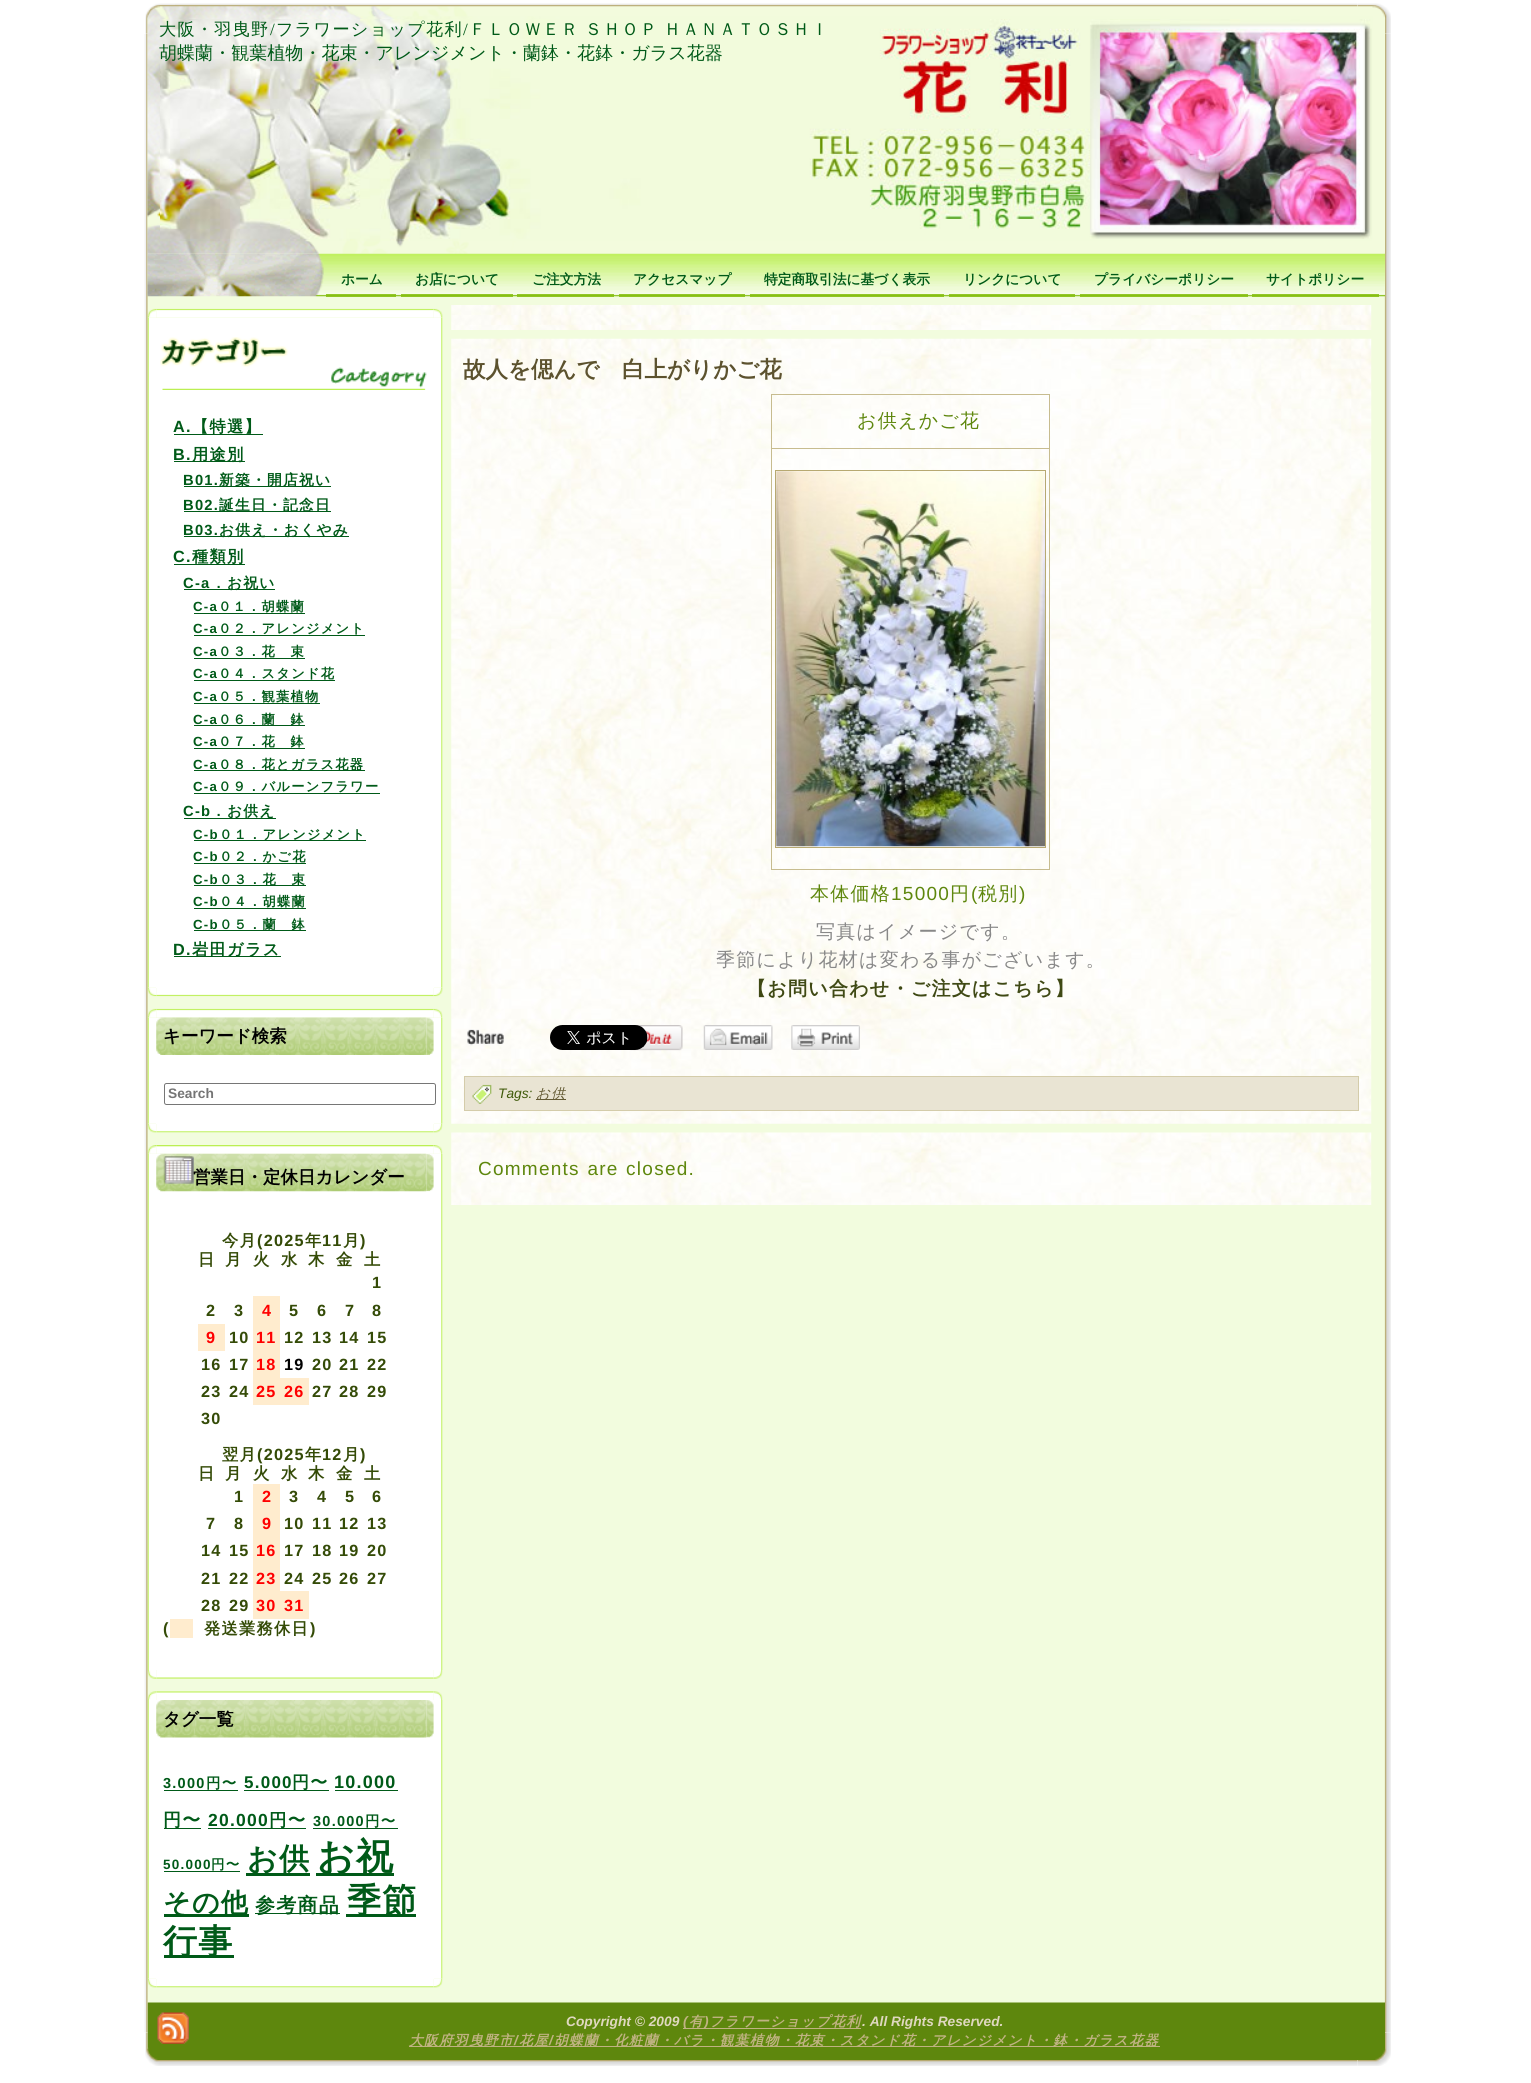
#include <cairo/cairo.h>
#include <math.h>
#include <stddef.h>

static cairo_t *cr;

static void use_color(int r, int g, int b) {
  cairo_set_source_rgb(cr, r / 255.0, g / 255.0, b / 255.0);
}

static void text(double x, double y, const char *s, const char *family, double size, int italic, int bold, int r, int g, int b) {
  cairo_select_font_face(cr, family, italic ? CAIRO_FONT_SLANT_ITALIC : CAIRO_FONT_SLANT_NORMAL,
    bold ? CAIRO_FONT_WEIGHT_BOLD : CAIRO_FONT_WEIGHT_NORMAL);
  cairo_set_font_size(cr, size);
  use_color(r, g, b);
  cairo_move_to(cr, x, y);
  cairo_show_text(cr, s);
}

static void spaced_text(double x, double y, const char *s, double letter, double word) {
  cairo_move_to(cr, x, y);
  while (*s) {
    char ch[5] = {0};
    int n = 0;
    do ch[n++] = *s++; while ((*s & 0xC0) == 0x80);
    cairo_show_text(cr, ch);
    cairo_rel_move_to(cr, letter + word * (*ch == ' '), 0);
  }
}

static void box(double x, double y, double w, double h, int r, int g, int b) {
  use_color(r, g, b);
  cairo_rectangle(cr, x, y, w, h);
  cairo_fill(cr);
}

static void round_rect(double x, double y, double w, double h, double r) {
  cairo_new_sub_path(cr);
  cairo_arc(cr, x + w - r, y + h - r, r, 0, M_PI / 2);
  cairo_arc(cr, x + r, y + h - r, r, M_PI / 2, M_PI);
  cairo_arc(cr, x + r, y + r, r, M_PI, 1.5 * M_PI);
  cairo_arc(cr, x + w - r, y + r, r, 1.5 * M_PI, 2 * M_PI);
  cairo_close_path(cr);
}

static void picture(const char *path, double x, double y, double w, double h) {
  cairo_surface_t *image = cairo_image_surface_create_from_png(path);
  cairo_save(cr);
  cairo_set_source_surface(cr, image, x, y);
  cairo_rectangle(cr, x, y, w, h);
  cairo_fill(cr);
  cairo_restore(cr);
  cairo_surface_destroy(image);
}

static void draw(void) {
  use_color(255, 255, 255);
  cairo_paint(cr);
  picture("img_01.png", 145, 3, 30, 31);
  picture("img_03.png", 1357, 3, 34, 31);
  picture("img_02.png", 175, 3, 1183, 4);
  picture("img_57.png", 145, 2032, 30, 34);
  picture("img_55.png", 144, 34, 31, 1999);
  box(175, 253, 1183, 1750, 242, 252, 222);
  picture("img_59.png", 1357, 2032, 34, 34);
  picture("img_56.png", 1358, 34, 33, 1999);
  picture("img_04.png", 147, 6, 1238, 248);
  picture("img_05.png", 160, 19, 1212, 223);
  picture("img_06.png", 147, 253, 1238, 44);
  cairo_set_source_rgba(cr, 0.522, 0.749, 0.067, 0.87);
  cairo_rectangle(cr, 326, 294, 66, 3);
  cairo_fill(cr);
  cairo_rectangle(cr, 392, 294, 4, 3);
  cairo_fill(cr);
  cairo_rectangle(cr, 401, 294, 107, 3);
  cairo_fill(cr);
  cairo_rectangle(cr, 508, 294, 5, 3);
  cairo_fill(cr);
  cairo_rectangle(cr, 517, 294, 92, 3);
  cairo_fill(cr);
  cairo_rectangle(cr, 609, 294, 5, 3);
  cairo_fill(cr);
  cairo_rectangle(cr, 619, 294, 121, 3);
  cairo_fill(cr);
  cairo_rectangle(cr, 740, 294, 5, 3);
  cairo_fill(cr);
  cairo_rectangle(cr, 750, 294, 189, 3);
  cairo_fill(cr);
  cairo_rectangle(cr, 939, 294, 5, 3);
  cairo_fill(cr);
  cairo_rectangle(cr, 949, 294, 121, 3);
  cairo_fill(cr);
  cairo_rectangle(cr, 1070, 294, 5, 3);
  cairo_fill(cr);
  cairo_rectangle(cr, 1080, 294, 163, 3);
  cairo_fill(cr);
  cairo_rectangle(cr, 1243, 294, 5, 3);
  cairo_fill(cr);
  cairo_rectangle(cr, 1252, 294, 122, 3);
  cairo_fill(cr);
  cairo_rectangle(cr, 1374, 294, 5, 3);
  cairo_fill(cr);
  picture("img_07.png", 147, 308, 10, 10);
  picture("img_09.png", 433, 308, 10, 10);
  picture("img_08.png", 156, 308, 278, 10);
  picture("img_13.png", 147, 987, 10, 10);
  picture("img_10.png", 147, 317, 10, 671);
  picture("img_15.png", 433, 987, 10, 10);
  picture("img_11.png", 433, 317, 10, 671);
  box(156, 318, 278, 670, 255, 255, 255);
  picture("img_12.png", 160, 337, 267, 53);
  box(174, 434, 89, 1, 0, 90, 24);
  box(174, 461, 71, 1, 0, 90, 24);
  box(184, 486, 147, 1, 0, 90, 24);
  box(184, 511, 147, 1, 0, 90, 24);
  box(184, 536, 165, 1, 0, 90, 24);
  box(174, 564, 71, 1, 0, 90, 24);
  box(184, 589, 91, 1, 0, 90, 24);
  box(194, 613, 111, 1, 0, 90, 24);
  box(194, 635, 171, 1, 0, 90, 24);
  box(194, 658, 111, 1, 0, 90, 24);
  box(194, 680, 141, 1, 0, 90, 24);
  box(194, 703, 126, 1, 0, 90, 24);
  box(194, 725, 111, 1, 0, 90, 24);
  box(194, 748, 111, 1, 0, 90, 24);
  box(194, 770, 171, 1, 0, 90, 24);
  box(194, 793, 186, 1, 0, 90, 24);
  box(184, 818, 92, 1, 0, 90, 24);
  box(194, 840, 172, 1, 0, 90, 24);
  box(194, 863, 112, 1, 0, 90, 24);
  box(194, 885, 112, 1, 0, 90, 24);
  box(194, 908, 112, 1, 0, 90, 24);
  box(194, 930, 112, 1, 0, 90, 24);
  box(174, 956, 107, 1, 0, 90, 24);
  picture("img_14.png", 156, 988, 278, 9);
  picture("img_16.png", 147, 1008, 10, 10);
  picture("img_17.png", 433, 1008, 10, 10);
  picture("img_08.png", 156, 1008, 278, 10);
  picture("img_22.png", 147, 1123, 10, 10);
  picture("img_18.png", 147, 1017, 10, 107);
  picture("img_24.png", 433, 1123, 10, 10);
  picture("img_19.png", 433, 1017, 10, 107);
  box(156, 1018, 278, 106, 255, 255, 255);
  picture("img_20.png", 156, 1017, 271, 38);
  picture("img_21.png", 426, 1017, 8, 38);
  round_rect(164.5, 1083.5, 271, 21, 2);
  use_color(118, 118, 118);
  cairo_set_line_width(cr, 1);
  cairo_stroke(cr);
  picture("img_23.png", 156, 1124, 278, 9);
  picture("img_25.png", 147, 1145, 10, 9);
  picture("img_27.png", 433, 1145, 10, 9);
  picture("img_26.png", 156, 1145, 278, 9);
  picture("img_28.png", 147, 1154, 9, 516);
  box(156, 1154, 278, 516, 255, 255, 255);
  picture("img_29.png", 434, 1154, 9, 516);
  picture("img_30.png", 156, 1153, 271, 39);
  picture("img_31.png", 426, 1154, 8, 38);
  picture("img_32.png", 163, 1156, 31, 28);
  box(253, 1296, 27, 109, 255, 236, 206);
  box(198, 1324, 27, 27, 255, 236, 206);
  box(280, 1378, 29, 27, 255, 236, 206);
  box(253, 1484, 27, 135, 255, 236, 206);
  box(280, 1591, 29, 28, 255, 236, 206);
  box(170, 1619, 23, 19, 255, 236, 206);
  picture("img_33.png", 147, 1670, 10, 9);
  picture("img_35.png", 433, 1670, 10, 9);
  picture("img_34.png", 156, 1670, 278, 9);
  picture("img_36.png", 147, 1691, 10, 9);
  picture("img_38.png", 433, 1691, 10, 9);
  picture("img_37.png", 156, 1691, 278, 9);
  picture("img_22.png", 147, 1978, 10, 10);
  picture("img_39.png", 147, 1700, 9, 279);
  picture("img_24.png", 433, 1978, 10, 10);
  box(156, 1700, 278, 279, 255, 255, 255);
  picture("img_40.png", 434, 1700, 9, 279);
  picture("img_41.png", 156, 1700, 271, 38);
  picture("img_42.png", 426, 1700, 8, 38);
  box(164, 1790, 74, 1, 0, 90, 24);
  box(244, 1790, 85, 1, 0, 90, 24);
  box(335, 1790, 63, 1, 0, 90, 24);
  box(164, 1828, 37, 1, 0, 90, 24);
  box(208, 1828, 98, 1, 0, 90, 24);
  box(313, 1828, 85, 1, 0, 90, 24);
  box(164, 1871, 76, 1, 0, 90, 24);
  box(246, 1873, 64, 3, 0, 90, 24);
  box(316, 1873, 78, 3, 0, 90, 24);
  box(164, 1914, 85, 3, 0, 90, 24);
  box(255, 1913, 85, 1, 0, 90, 24);
  box(346, 1914, 70, 3, 0, 90, 24);
  box(164, 1955, 70, 3, 0, 90, 24);
  picture("img_23.png", 156, 1979, 278, 9);
  picture("img_43.png", 451, 305, 921, 25);
  picture("img_44.png", 451, 338, 921, 786);
  box(771, 394, 279, 1, 199, 188, 143);
  box(771, 448, 279, 1, 199, 188, 143);
  box(1049, 448, 1, 422, 199, 188, 143);
  box(1049, 394, 1, 55, 199, 188, 143);
  box(771, 869, 279, 1, 199, 188, 143);
  box(771, 448, 1, 422, 199, 188, 143);
  box(771, 394, 1, 55, 199, 188, 143);
  cairo_rectangle(cr, 775.5, 470.5, 270, 377);
  use_color(183, 169, 113);
  cairo_stroke(cr);
  picture("img_45.png", 776, 471, 269, 376);
  picture("img_46.png", 467, 1029, 37, 17);
  picture("img_48.png", 630, 1025, 53, 26);
  picture("img_47.png", 550, 1025, 98, 25);
  picture("img_49.png", 703, 1025, 70, 25);
  picture("img_50.png", 791, 1025, 69, 25);
  use_color(233, 228, 211);
  cairo_rectangle(cr, 464.5, 1076.5, 894, 34);
  cairo_fill_preserve(cr);
  use_color(212, 204, 170);
  cairo_stroke(cr);
  picture("img_51.png", 472, 1084, 20, 20);
  box(536, 1099, 30, 1, 98, 89, 50);
  picture("img_52.png", 451, 1132, 921, 73);
  picture("img_53.png", 147, 2002, 1238, 58);
  picture("img_54.png", 157, 2012, 32, 32);
  box(683, 2028, 178, 1, 192, 179, 130);
  box(409, 2046, 751, 1, 192, 179, 130);
  picture("img_58.png", 175, 2060, 1183, 6);
  cairo_select_font_face(cr, "WenQuanYi Zen Hei Medium", CAIRO_FONT_SLANT_NORMAL, CAIRO_FONT_WEIGHT_NORMAL);
  cairo_set_font_size(cr, 17.15);
  use_color(0, 90, 24);
  spaced_text(159, 35, "大阪・羽曳野", 1.25, 0);
  cairo_select_font_face(cr, "Liberation Serif", CAIRO_FONT_SLANT_NORMAL, CAIRO_FONT_WEIGHT_NORMAL);
  spaced_text(270, 35, "/", 1.25, 0);
  cairo_select_font_face(cr, "WenQuanYi Zen Hei Medium", CAIRO_FONT_SLANT_NORMAL, CAIRO_FONT_WEIGHT_NORMAL);
  spaced_text(276, 35, "フラワーショップ花利", 1.25, 0);
  cairo_select_font_face(cr, "Liberation Serif", CAIRO_FONT_SLANT_NORMAL, CAIRO_FONT_WEIGHT_NORMAL);
  spaced_text(463, 35, "/", 1.25, 0);
  cairo_select_font_face(cr, "WenQuanYi Zen Hei Medium", CAIRO_FONT_SLANT_NORMAL, CAIRO_FONT_WEIGHT_NORMAL);
  spaced_text(469, 35, "ＦＬＯＷＥＲ ＳＨＯＰ ＨＡＮＡＴＯＳＨＩ", 1.25, -1);
  text(159, 59, "胡蝶蘭・観葉植物・花束・アレンジメント・蘭鉢・花鉢・ガラス花器", "WenQuanYi Zen Hei Medium", 18.05, 0, 0, 0, 90, 24);
  text(341, 284, "ホーム", "WenQuanYi Zen Hei", 13.75, 0, 1, 0, 90, 24);
  text(415, 284, "お店について", "WenQuanYi Zen Hei", 13.75, 0, 1, 0, 90, 24);
  text(532, 284, "ご注文方法", "WenQuanYi Zen Hei", 13.75, 0, 1, 0, 90, 24);
  text(633, 284, "アクセスマップ", "WenQuanYi Zen Hei", 13.75, 0, 1, 0, 90, 24);
  text(764, 284, "特定商取引法に基づく表示", "WenQuanYi Zen Hei", 13.75, 0, 1, 0, 90, 24);
  text(963, 284, "リンクについて", "WenQuanYi Zen Hei", 13.75, 0, 1, 0, 90, 24);
  text(1094, 284, "プライバシーポリシー", "WenQuanYi Zen Hei", 13.75, 0, 1, 0, 90, 24);
  text(1266, 284, "サイトポリシー", "WenQuanYi Zen Hei", 13.75, 0, 1, 0, 90, 24);
  cairo_select_font_face(cr, "Liberation Sans", CAIRO_FONT_SLANT_NORMAL, CAIRO_FONT_WEIGHT_BOLD);
  cairo_set_font_size(cr, 16.25);
  spaced_text(173, 432, "A.", 1.25, 0);
  cairo_select_font_face(cr, "WenQuanYi Zen Hei", CAIRO_FONT_SLANT_NORMAL, CAIRO_FONT_WEIGHT_BOLD);
  spaced_text(192, 432, "【特選】", 1.25, 0);
  cairo_select_font_face(cr, "Liberation Sans", CAIRO_FONT_SLANT_NORMAL, CAIRO_FONT_WEIGHT_BOLD);
  spaced_text(173, 460, "B.", 1.25, 0);
  cairo_select_font_face(cr, "WenQuanYi Zen Hei", CAIRO_FONT_SLANT_NORMAL, CAIRO_FONT_WEIGHT_BOLD);
  spaced_text(192, 460, "用途別", 1.25, 0);
  cairo_select_font_face(cr, "Liberation Sans", CAIRO_FONT_SLANT_NORMAL, CAIRO_FONT_WEIGHT_BOLD);
  cairo_set_font_size(cr, 14.75);
  spaced_text(183, 485, "B01.", 1.25, 0);
  cairo_select_font_face(cr, "WenQuanYi Zen Hei", CAIRO_FONT_SLANT_NORMAL, CAIRO_FONT_WEIGHT_BOLD);
  spaced_text(219, 485, "新築・開店祝い", 1.25, 0);
  cairo_select_font_face(cr, "Liberation Sans", CAIRO_FONT_SLANT_NORMAL, CAIRO_FONT_WEIGHT_BOLD);
  spaced_text(183, 510, "B02.", 1.25, 0);
  cairo_select_font_face(cr, "WenQuanYi Zen Hei", CAIRO_FONT_SLANT_NORMAL, CAIRO_FONT_WEIGHT_BOLD);
  spaced_text(219, 510, "誕生日・記念日", 1.25, 0);
  cairo_select_font_face(cr, "Liberation Sans", CAIRO_FONT_SLANT_NORMAL, CAIRO_FONT_WEIGHT_BOLD);
  spaced_text(183, 535, "B03.", 1.25, 0);
  cairo_select_font_face(cr, "WenQuanYi Zen Hei", CAIRO_FONT_SLANT_NORMAL, CAIRO_FONT_WEIGHT_BOLD);
  spaced_text(219, 535, "お供え・おくやみ", 1.25, 0);
  cairo_select_font_face(cr, "Liberation Sans", CAIRO_FONT_SLANT_NORMAL, CAIRO_FONT_WEIGHT_BOLD);
  cairo_set_font_size(cr, 16.25);
  spaced_text(173, 562, "C.", 1.25, 0);
  cairo_select_font_face(cr, "WenQuanYi Zen Hei", CAIRO_FONT_SLANT_NORMAL, CAIRO_FONT_WEIGHT_BOLD);
  spaced_text(192, 562, "種類別", 1.25, 0);
  cairo_select_font_face(cr, "Liberation Sans", CAIRO_FONT_SLANT_NORMAL, CAIRO_FONT_WEIGHT_BOLD);
  cairo_set_font_size(cr, 14.75);
  spaced_text(183, 588, "C-a", 1.25, 0);
  cairo_select_font_face(cr, "WenQuanYi Zen Hei", CAIRO_FONT_SLANT_NORMAL, CAIRO_FONT_WEIGHT_BOLD);
  spaced_text(211, 588, "．お祝い", 1.25, 0);
  cairo_select_font_face(cr, "Liberation Sans", CAIRO_FONT_SLANT_NORMAL, CAIRO_FONT_WEIGHT_BOLD);
  cairo_set_font_size(cr, 13.25);
  spaced_text(193, 611, "C-a", 1.25, 0);
  cairo_select_font_face(cr, "WenQuanYi Zen Hei", CAIRO_FONT_SLANT_NORMAL, CAIRO_FONT_WEIGHT_BOLD);
  spaced_text(218, 611, "０１．胡蝶蘭", 1.25, 0);
  cairo_select_font_face(cr, "Liberation Sans", CAIRO_FONT_SLANT_NORMAL, CAIRO_FONT_WEIGHT_BOLD);
  spaced_text(193, 633, "C-a", 1.25, 0);
  cairo_select_font_face(cr, "WenQuanYi Zen Hei", CAIRO_FONT_SLANT_NORMAL, CAIRO_FONT_WEIGHT_BOLD);
  spaced_text(218, 633, "０２．アレンジメント", 1.25, 0);
  cairo_select_font_face(cr, "Liberation Sans", CAIRO_FONT_SLANT_NORMAL, CAIRO_FONT_WEIGHT_BOLD);
  spaced_text(193, 656, "C-a", 1.25, 0);
  cairo_select_font_face(cr, "WenQuanYi Zen Hei", CAIRO_FONT_SLANT_NORMAL, CAIRO_FONT_WEIGHT_BOLD);
  spaced_text(218, 656, "０３．花　束", 1.25, 0);
  cairo_select_font_face(cr, "Liberation Sans", CAIRO_FONT_SLANT_NORMAL, CAIRO_FONT_WEIGHT_BOLD);
  spaced_text(193, 678, "C-a", 1.25, 0);
  cairo_select_font_face(cr, "WenQuanYi Zen Hei", CAIRO_FONT_SLANT_NORMAL, CAIRO_FONT_WEIGHT_BOLD);
  spaced_text(218, 678, "０４．スタンド花", 1.25, 0);
  cairo_select_font_face(cr, "Liberation Sans", CAIRO_FONT_SLANT_NORMAL, CAIRO_FONT_WEIGHT_BOLD);
  spaced_text(193, 701, "C-a", 1.25, 0);
  cairo_select_font_face(cr, "WenQuanYi Zen Hei", CAIRO_FONT_SLANT_NORMAL, CAIRO_FONT_WEIGHT_BOLD);
  spaced_text(218, 701, "０５．観葉植物", 1.25, 0);
  cairo_select_font_face(cr, "Liberation Sans", CAIRO_FONT_SLANT_NORMAL, CAIRO_FONT_WEIGHT_BOLD);
  spaced_text(193, 724, "C-a", 1.25, 0);
  cairo_select_font_face(cr, "WenQuanYi Zen Hei", CAIRO_FONT_SLANT_NORMAL, CAIRO_FONT_WEIGHT_BOLD);
  spaced_text(218, 724, "０６．蘭　鉢", 1.25, 0);
  cairo_select_font_face(cr, "Liberation Sans", CAIRO_FONT_SLANT_NORMAL, CAIRO_FONT_WEIGHT_BOLD);
  spaced_text(193, 746, "C-a", 1.25, 0);
  cairo_select_font_face(cr, "WenQuanYi Zen Hei", CAIRO_FONT_SLANT_NORMAL, CAIRO_FONT_WEIGHT_BOLD);
  spaced_text(218, 746, "０７．花　鉢", 1.25, 0);
  cairo_select_font_face(cr, "Liberation Sans", CAIRO_FONT_SLANT_NORMAL, CAIRO_FONT_WEIGHT_BOLD);
  spaced_text(193, 769, "C-a", 1.25, 0);
  cairo_select_font_face(cr, "WenQuanYi Zen Hei", CAIRO_FONT_SLANT_NORMAL, CAIRO_FONT_WEIGHT_BOLD);
  spaced_text(218, 769, "０８．花とガラス花器", 1.25, 0);
  cairo_select_font_face(cr, "Liberation Sans", CAIRO_FONT_SLANT_NORMAL, CAIRO_FONT_WEIGHT_BOLD);
  spaced_text(193, 791, "C-a", 1.25, 0);
  cairo_select_font_face(cr, "WenQuanYi Zen Hei", CAIRO_FONT_SLANT_NORMAL, CAIRO_FONT_WEIGHT_BOLD);
  spaced_text(218, 791, "０９．バルーンフラワー", 1.25, 0);
  cairo_select_font_face(cr, "Liberation Sans", CAIRO_FONT_SLANT_NORMAL, CAIRO_FONT_WEIGHT_BOLD);
  cairo_set_font_size(cr, 14.75);
  spaced_text(183, 816, "C-b", 1.25, 0);
  cairo_select_font_face(cr, "WenQuanYi Zen Hei", CAIRO_FONT_SLANT_NORMAL, CAIRO_FONT_WEIGHT_BOLD);
  spaced_text(211, 816, "．お供え", 1.25, 0);
  cairo_select_font_face(cr, "Liberation Sans", CAIRO_FONT_SLANT_NORMAL, CAIRO_FONT_WEIGHT_BOLD);
  cairo_set_font_size(cr, 13.25);
  spaced_text(193, 839, "C-b", 1.25, 0);
  cairo_select_font_face(cr, "WenQuanYi Zen Hei", CAIRO_FONT_SLANT_NORMAL, CAIRO_FONT_WEIGHT_BOLD);
  spaced_text(219, 839, "０１．アレンジメント", 1.25, 0);
  cairo_select_font_face(cr, "Liberation Sans", CAIRO_FONT_SLANT_NORMAL, CAIRO_FONT_WEIGHT_BOLD);
  spaced_text(193, 861, "C-b", 1.25, 0);
  cairo_select_font_face(cr, "WenQuanYi Zen Hei", CAIRO_FONT_SLANT_NORMAL, CAIRO_FONT_WEIGHT_BOLD);
  spaced_text(219, 861, "０２．かご花", 1.25, 0);
  cairo_select_font_face(cr, "Liberation Sans", CAIRO_FONT_SLANT_NORMAL, CAIRO_FONT_WEIGHT_BOLD);
  spaced_text(193, 884, "C-b", 1.25, 0);
  cairo_select_font_face(cr, "WenQuanYi Zen Hei", CAIRO_FONT_SLANT_NORMAL, CAIRO_FONT_WEIGHT_BOLD);
  spaced_text(219, 884, "０３．花　束", 1.25, 0);
  cairo_select_font_face(cr, "Liberation Sans", CAIRO_FONT_SLANT_NORMAL, CAIRO_FONT_WEIGHT_BOLD);
  spaced_text(193, 906, "C-b", 1.25, 0);
  cairo_select_font_face(cr, "WenQuanYi Zen Hei", CAIRO_FONT_SLANT_NORMAL, CAIRO_FONT_WEIGHT_BOLD);
  spaced_text(219, 906, "０４．胡蝶蘭", 1.25, 0);
  cairo_select_font_face(cr, "Liberation Sans", CAIRO_FONT_SLANT_NORMAL, CAIRO_FONT_WEIGHT_BOLD);
  spaced_text(193, 929, "C-b", 1.25, 0);
  cairo_select_font_face(cr, "WenQuanYi Zen Hei", CAIRO_FONT_SLANT_NORMAL, CAIRO_FONT_WEIGHT_BOLD);
  spaced_text(219, 929, "０５．蘭　鉢", 1.25, 0);
  cairo_select_font_face(cr, "Liberation Sans", CAIRO_FONT_SLANT_NORMAL, CAIRO_FONT_WEIGHT_BOLD);
  cairo_set_font_size(cr, 16.25);
  spaced_text(173, 955, "D.", 1.25, 0);
  cairo_select_font_face(cr, "WenQuanYi Zen Hei", CAIRO_FONT_SLANT_NORMAL, CAIRO_FONT_WEIGHT_BOLD);
  spaced_text(192, 955, "岩田ガラス", 1.25, 0);
  text(163, 1042, "キーワード検索", "WenQuanYi Zen Hei", 17.5, 0, 1, 0, 0, 0);
  text(168, 1098, "Search", "Liberation Sans", 13.75, 0, 1, 117, 117, 117);
  text(193, 1183, "営業日・定休日カレンダー", "WenQuanYi Zen Hei", 17.5, 0, 1, 0, 0, 0);
  cairo_set_font_size(cr, 16.25);
  use_color(52, 75, 7);
  spaced_text(222, 1246, "今月", 1.25, 0);
  cairo_select_font_face(cr, "Liberation Sans", CAIRO_FONT_SLANT_NORMAL, CAIRO_FONT_WEIGHT_BOLD);
  spaced_text(257, 1246, "(2025", 1.25, 0);
  cairo_select_font_face(cr, "WenQuanYi Zen Hei", CAIRO_FONT_SLANT_NORMAL, CAIRO_FONT_WEIGHT_BOLD);
  spaced_text(305, 1246, "年", 1.25, 0);
  cairo_select_font_face(cr, "Liberation Sans", CAIRO_FONT_SLANT_NORMAL, CAIRO_FONT_WEIGHT_BOLD);
  spaced_text(322, 1246, "11", 1.25, 0);
  cairo_select_font_face(cr, "WenQuanYi Zen Hei", CAIRO_FONT_SLANT_NORMAL, CAIRO_FONT_WEIGHT_BOLD);
  spaced_text(343, 1246, "月", 1.25, 0);
  cairo_select_font_face(cr, "Liberation Sans", CAIRO_FONT_SLANT_NORMAL, CAIRO_FONT_WEIGHT_BOLD);
  spaced_text(360, 1246, ")", 1.25, 0);
  cairo_select_font_face(cr, "WenQuanYi Zen Hei", CAIRO_FONT_SLANT_NORMAL, CAIRO_FONT_WEIGHT_BOLD);
  spaced_text(198, 1265, "日", 1.25, 0);
  spaced_text(225, 1265, "月", 1.25, 0);
  spaced_text(253, 1265, "火", 1.25, 0);
  spaced_text(281, 1265, "水", 1.25, 0);
  spaced_text(308, 1265, "木", 1.25, 0);
  spaced_text(336, 1265, "金", 1.25, 0);
  spaced_text(364, 1265, "土", 1.25, 0);
  cairo_select_font_face(cr, "Liberation Sans", CAIRO_FONT_SLANT_NORMAL, CAIRO_FONT_WEIGHT_BOLD);
  spaced_text(372, 1288, "1", 1.25, 0);
  spaced_text(206, 1316, "2", 1.25, 0);
  spaced_text(234, 1316, "3", 1.25, 0);
  use_color(255, 0, 0);
  spaced_text(262, 1316, "4", 1.25, 0);
  use_color(52, 75, 7);
  spaced_text(289, 1316, "5", 1.25, 0);
  spaced_text(317, 1316, "6", 1.25, 0);
  spaced_text(345, 1316, "7", 1.25, 0);
  spaced_text(372, 1316, "8", 1.25, 0);
  use_color(255, 0, 0);
  spaced_text(206, 1343, "9", 1.25, 0);
  use_color(52, 75, 7);
  spaced_text(229, 1343, "10", 1.25, 0);
  use_color(255, 0, 0);
  spaced_text(256, 1343, "11", 1.25, 0);
  use_color(52, 75, 7);
  spaced_text(284, 1343, "12", 1.25, 0);
  spaced_text(312, 1343, "13", 1.25, 0);
  spaced_text(339, 1343, "14", 1.25, 0);
  spaced_text(367, 1343, "15", 1.25, 0);
  spaced_text(201, 1370, "16", 1.25, 0);
  spaced_text(229, 1370, "17", 1.25, 0);
  use_color(255, 0, 0);
  spaced_text(256, 1370, "18", 1.25, 0);
  use_color(0, 0, 0);
  spaced_text(284, 1370, "19", 1.25, 0);
  use_color(52, 75, 7);
  spaced_text(312, 1370, "20", 1.25, 0);
  spaced_text(339, 1370, "21", 1.25, 0);
  spaced_text(367, 1370, "22", 1.25, 0);
  spaced_text(201, 1397, "23", 1.25, 0);
  spaced_text(229, 1397, "24", 1.25, 0);
  use_color(255, 0, 0);
  spaced_text(256, 1397, "25", 1.25, 0);
  spaced_text(284, 1397, "26", 1.25, 0);
  use_color(52, 75, 7);
  spaced_text(312, 1397, "27", 1.25, 0);
  spaced_text(339, 1397, "28", 1.25, 0);
  spaced_text(367, 1397, "29", 1.25, 0);
  spaced_text(201, 1424, "30", 1.25, 0);
  cairo_select_font_face(cr, "WenQuanYi Zen Hei", CAIRO_FONT_SLANT_NORMAL, CAIRO_FONT_WEIGHT_BOLD);
  spaced_text(222, 1460, "翌月", 1.25, 0);
  cairo_select_font_face(cr, "Liberation Sans", CAIRO_FONT_SLANT_NORMAL, CAIRO_FONT_WEIGHT_BOLD);
  spaced_text(257, 1460, "(2025", 1.25, 0);
  cairo_select_font_face(cr, "WenQuanYi Zen Hei", CAIRO_FONT_SLANT_NORMAL, CAIRO_FONT_WEIGHT_BOLD);
  spaced_text(305, 1460, "年", 1.25, 0);
  cairo_select_font_face(cr, "Liberation Sans", CAIRO_FONT_SLANT_NORMAL, CAIRO_FONT_WEIGHT_BOLD);
  spaced_text(322, 1460, "12", 1.25, 0);
  cairo_select_font_face(cr, "WenQuanYi Zen Hei", CAIRO_FONT_SLANT_NORMAL, CAIRO_FONT_WEIGHT_BOLD);
  spaced_text(343, 1460, "月", 1.25, 0);
  cairo_select_font_face(cr, "Liberation Sans", CAIRO_FONT_SLANT_NORMAL, CAIRO_FONT_WEIGHT_BOLD);
  spaced_text(360, 1460, ")", 1.25, 0);
  cairo_select_font_face(cr, "WenQuanYi Zen Hei", CAIRO_FONT_SLANT_NORMAL, CAIRO_FONT_WEIGHT_BOLD);
  spaced_text(198, 1479, "日", 1.25, 0);
  spaced_text(225, 1479, "月", 1.25, 0);
  spaced_text(253, 1479, "火", 1.25, 0);
  spaced_text(281, 1479, "水", 1.25, 0);
  spaced_text(308, 1479, "木", 1.25, 0);
  spaced_text(336, 1479, "金", 1.25, 0);
  spaced_text(364, 1479, "土", 1.25, 0);
  cairo_select_font_face(cr, "Liberation Sans", CAIRO_FONT_SLANT_NORMAL, CAIRO_FONT_WEIGHT_BOLD);
  spaced_text(234, 1502, "1", 1.25, 0);
  use_color(255, 0, 0);
  spaced_text(262, 1502, "2", 1.25, 0);
  use_color(52, 75, 7);
  spaced_text(289, 1502, "3", 1.25, 0);
  spaced_text(317, 1502, "4", 1.25, 0);
  spaced_text(345, 1502, "5", 1.25, 0);
  spaced_text(372, 1502, "6", 1.25, 0);
  spaced_text(206, 1529, "7", 1.25, 0);
  spaced_text(234, 1529, "8", 1.25, 0);
  use_color(255, 0, 0);
  spaced_text(262, 1529, "9", 1.25, 0);
  use_color(52, 75, 7);
  spaced_text(284, 1529, "10", 1.25, 0);
  spaced_text(312, 1529, "11", 1.25, 0);
  spaced_text(339, 1529, "12", 1.25, 0);
  spaced_text(367, 1529, "13", 1.25, 0);
  spaced_text(201, 1556, "14", 1.25, 0);
  spaced_text(229, 1556, "15", 1.25, 0);
  use_color(255, 0, 0);
  spaced_text(256, 1556, "16", 1.25, 0);
  use_color(52, 75, 7);
  spaced_text(284, 1556, "17", 1.25, 0);
  spaced_text(312, 1556, "18", 1.25, 0);
  spaced_text(339, 1556, "19", 1.25, 0);
  spaced_text(367, 1556, "20", 1.25, 0);
  spaced_text(201, 1584, "21", 1.25, 0);
  spaced_text(229, 1584, "22", 1.25, 0);
  use_color(255, 0, 0);
  spaced_text(256, 1584, "23", 1.25, 0);
  use_color(52, 75, 7);
  spaced_text(284, 1584, "24", 1.25, 0);
  spaced_text(312, 1584, "25", 1.25, 0);
  spaced_text(339, 1584, "26", 1.25, 0);
  spaced_text(367, 1584, "27", 1.25, 0);
  spaced_text(201, 1611, "28", 1.25, 0);
  spaced_text(229, 1611, "29", 1.25, 0);
  use_color(255, 0, 0);
  spaced_text(256, 1611, "30", 1.25, 0);
  spaced_text(284, 1611, "31", 1.25, 0);
  use_color(52, 75, 7);
  spaced_text(163, 1634, "(", 1.25, 0);
  cairo_select_font_face(cr, "WenQuanYi Zen Hei", CAIRO_FONT_SLANT_NORMAL, CAIRO_FONT_WEIGHT_BOLD);
  spaced_text(204, 1634, "発送業務休日", 1.25, 0);
  cairo_select_font_face(cr, "Liberation Sans", CAIRO_FONT_SLANT_NORMAL, CAIRO_FONT_WEIGHT_BOLD);
  spaced_text(310, 1634, ")", 1.25, 0);
  text(163, 1725, "タグ一覧", "WenQuanYi Zen Hei", 17.5, 0, 1, 0, 0, 0);
  cairo_select_font_face(cr, "Liberation Sans", CAIRO_FONT_SLANT_NORMAL, CAIRO_FONT_WEIGHT_BOLD);
  cairo_set_font_size(cr, 14.5);
  use_color(0, 90, 24);
  spaced_text(163, 1788, "3.000", 1.25, 0);
  cairo_select_font_face(cr, "WenQuanYi Zen Hei", CAIRO_FONT_SLANT_NORMAL, CAIRO_FONT_WEIGHT_BOLD);
  spaced_text(206, 1788, "円〜", 1.25, 0);
  cairo_select_font_face(cr, "Liberation Sans", CAIRO_FONT_SLANT_NORMAL, CAIRO_FONT_WEIGHT_BOLD);
  cairo_set_font_size(cr, 17);
  spaced_text(244, 1788, "5.000", 1.25, 0);
  cairo_select_font_face(cr, "WenQuanYi Zen Hei", CAIRO_FONT_SLANT_NORMAL, CAIRO_FONT_WEIGHT_BOLD);
  spaced_text(292, 1788, "円〜", 1.25, 0);
  cairo_select_font_face(cr, "Liberation Sans", CAIRO_FONT_SLANT_NORMAL, CAIRO_FONT_WEIGHT_BOLD);
  cairo_set_font_size(cr, 18);
  spaced_text(334, 1788, "10.000", 1.25, 0);
  cairo_select_font_face(cr, "WenQuanYi Zen Hei", CAIRO_FONT_SLANT_NORMAL, CAIRO_FONT_WEIGHT_BOLD);
  spaced_text(163, 1826, "円〜", 1.25, 0);
  cairo_select_font_face(cr, "Liberation Sans", CAIRO_FONT_SLANT_NORMAL, CAIRO_FONT_WEIGHT_BOLD);
  cairo_set_font_size(cr, 17.5);
  spaced_text(208, 1826, "20.000", 1.25, 0);
  cairo_select_font_face(cr, "WenQuanYi Zen Hei", CAIRO_FONT_SLANT_NORMAL, CAIRO_FONT_WEIGHT_BOLD);
  spaced_text(269, 1826, "円〜", 1.25, 0);
  cairo_select_font_face(cr, "Liberation Sans", CAIRO_FONT_SLANT_NORMAL, CAIRO_FONT_WEIGHT_BOLD);
  cairo_set_font_size(cr, 14.5);
  spaced_text(313, 1826, "30.000", 1.25, 0);
  cairo_select_font_face(cr, "WenQuanYi Zen Hei", CAIRO_FONT_SLANT_NORMAL, CAIRO_FONT_WEIGHT_BOLD);
  spaced_text(365, 1826, "円〜", 1.25, 0);
  cairo_select_font_face(cr, "Liberation Sans", CAIRO_FONT_SLANT_NORMAL, CAIRO_FONT_WEIGHT_BOLD);
  cairo_set_font_size(cr, 13.5);
  spaced_text(163, 1869, "50.000", 1.25, 0);
  cairo_select_font_face(cr, "WenQuanYi Zen Hei", CAIRO_FONT_SLANT_NORMAL, CAIRO_FONT_WEIGHT_BOLD);
  spaced_text(211, 1869, "円〜", 1.25, 0);
  cairo_set_font_size(cr, 30);
  spaced_text(247, 1869, "お供", 1.25, 0);
  cairo_set_font_size(cr, 37);
  spaced_text(317, 1869, "お祝", 1.25, 0);
  cairo_set_font_size(cr, 27);
  spaced_text(163, 1912, "その他", 1.25, 0);
  cairo_set_font_size(cr, 20);
  spaced_text(255, 1912, "参考商品", 1.25, 0);
  cairo_set_font_size(cr, 34);
  spaced_text(347, 1912, "季節", 1.25, 0);
  spaced_text(163, 1953, "行事", 1.25, 0);
  text(463, 377, "故人を偲んで　白上がりかご花", "WenQuanYi Zen Hei", 22.5, 0, 1, 92, 82, 46);
  cairo_select_font_face(cr, "WenQuanYi Zen Hei Medium", CAIRO_FONT_SLANT_NORMAL, CAIRO_FONT_WEIGHT_NORMAL);
  cairo_set_font_size(cr, 19);
  use_color(94, 135, 13);
  spaced_text(857, 427, "お供えかご花", 1.25, 0);
  spaced_text(810, 900, "本体価格", 1.25, 0);
  cairo_select_font_face(cr, "Liberation Sans", CAIRO_FONT_SLANT_NORMAL, CAIRO_FONT_WEIGHT_NORMAL);
  spaced_text(891, 900, "15000", 1.25, 0);
  cairo_select_font_face(cr, "WenQuanYi Zen Hei Medium", CAIRO_FONT_SLANT_NORMAL, CAIRO_FONT_WEIGHT_NORMAL);
  spaced_text(950, 900, "円", 1.25, 0);
  cairo_select_font_face(cr, "Liberation Sans", CAIRO_FONT_SLANT_NORMAL, CAIRO_FONT_WEIGHT_NORMAL);
  spaced_text(971, 900, "(", 1.25, 0);
  cairo_select_font_face(cr, "WenQuanYi Zen Hei Medium", CAIRO_FONT_SLANT_NORMAL, CAIRO_FONT_WEIGHT_NORMAL);
  spaced_text(978, 900, "税別", 1.25, 0);
  cairo_select_font_face(cr, "Liberation Sans", CAIRO_FONT_SLANT_NORMAL, CAIRO_FONT_WEIGHT_NORMAL);
  spaced_text(1019, 900, ")", 1.25, 0);
  cairo_select_font_face(cr, "WenQuanYi Zen Hei Medium", CAIRO_FONT_SLANT_NORMAL, CAIRO_FONT_WEIGHT_NORMAL);
  use_color(136, 136, 136);
  spaced_text(816, 938, "写真はイメージです。", 1.25, 0);
  spaced_text(716, 966, "季節により花材は変わる事がございます。", 1.25, 0);
  cairo_select_font_face(cr, "WenQuanYi Zen Hei", CAIRO_FONT_SLANT_NORMAL, CAIRO_FONT_WEIGHT_BOLD);
  use_color(63, 73, 20);
  spaced_text(747, 995, "【お問い合わせ・ご注文はこちら】", 1.25, 0);
  text(498, 1098, "Tags:", "Liberation Sans", 13.75, 1, 0, 62, 89, 8);
  cairo_select_font_face(cr, "WenQuanYi Zen Hei Medium", CAIRO_FONT_SLANT_ITALIC, CAIRO_FONT_WEIGHT_NORMAL);
  use_color(98, 89, 50);
  spaced_text(536, 1098, "お供", 1.25, 0);
  cairo_select_font_face(cr, "Liberation Sans", CAIRO_FONT_SLANT_NORMAL, CAIRO_FONT_WEIGHT_NORMAL);
  cairo_set_font_size(cr, 19);
  use_color(94, 135, 13);
  spaced_text(478, 1175, "Comments are closed.", 1.25, 1);
  text(566, 2026, "Copyright © 2009", "Liberation Sans", 13.75, 1, 1, 223, 216, 191);
  use_color(192, 179, 130);
  spaced_text(683, 2026, "(", 1.25, 0);
  cairo_select_font_face(cr, "WenQuanYi Zen Hei", CAIRO_FONT_SLANT_ITALIC, CAIRO_FONT_WEIGHT_BOLD);
  spaced_text(689, 2026, "有", 1.25, 0);
  spaced_text(709, 2026, "フラワーショップ花利", 1.25, 0);
  cairo_select_font_face(cr, "Liberation Sans", CAIRO_FONT_SLANT_ITALIC, CAIRO_FONT_WEIGHT_BOLD);
  spaced_text(704, 2026, ")", 1.25, 0);
  text(862, 2026, ". All Rights Reserved.", "Liberation Sans", 13.75, 1, 1, 223, 216, 191);
  cairo_select_font_face(cr, "WenQuanYi Zen Hei", CAIRO_FONT_SLANT_ITALIC, CAIRO_FONT_WEIGHT_BOLD);
  use_color(192, 179, 130);
  spaced_text(409, 2045, "大阪府羽曳野市", 1.25, 0);
  cairo_select_font_face(cr, "Liberation Sans", CAIRO_FONT_SLANT_ITALIC, CAIRO_FONT_WEIGHT_BOLD);
  spaced_text(514, 2045, "/", 1.25, 0);
  cairo_select_font_face(cr, "WenQuanYi Zen Hei", CAIRO_FONT_SLANT_ITALIC, CAIRO_FONT_WEIGHT_BOLD);
  spaced_text(519, 2045, "花屋", 1.25, 0);
  cairo_select_font_face(cr, "Liberation Sans", CAIRO_FONT_SLANT_ITALIC, CAIRO_FONT_WEIGHT_BOLD);
  spaced_text(549, 2045, "/", 1.25, 0);
  cairo_select_font_face(cr, "WenQuanYi Zen Hei", CAIRO_FONT_SLANT_ITALIC, CAIRO_FONT_WEIGHT_BOLD);
  spaced_text(554, 2045, "胡蝶蘭・化粧蘭・バラ・観葉植物・花束・スタンド花・アレンジメント・鉢・ガラス花器", 1.25, 0);
}

int main(void) {
  cairo_surface_t *surface = cairo_image_surface_create(CAIRO_FORMAT_RGB24, 1531, 2083);
  cr = cairo_create(surface);
  cairo_font_options_t *options = cairo_font_options_create();
  cairo_font_options_set_hint_metrics(options, CAIRO_HINT_METRICS_OFF);
  cairo_font_options_set_hint_style(options, CAIRO_HINT_STYLE_NONE);
  cairo_set_font_options(cr, options);
  cairo_set_miter_limit(cr, 4);
  draw();
  cairo_surface_write_to_png(surface, "out.png");
  cairo_font_options_destroy(options);
  cairo_destroy(cr);
  cairo_surface_destroy(surface);
  return 0;
}
